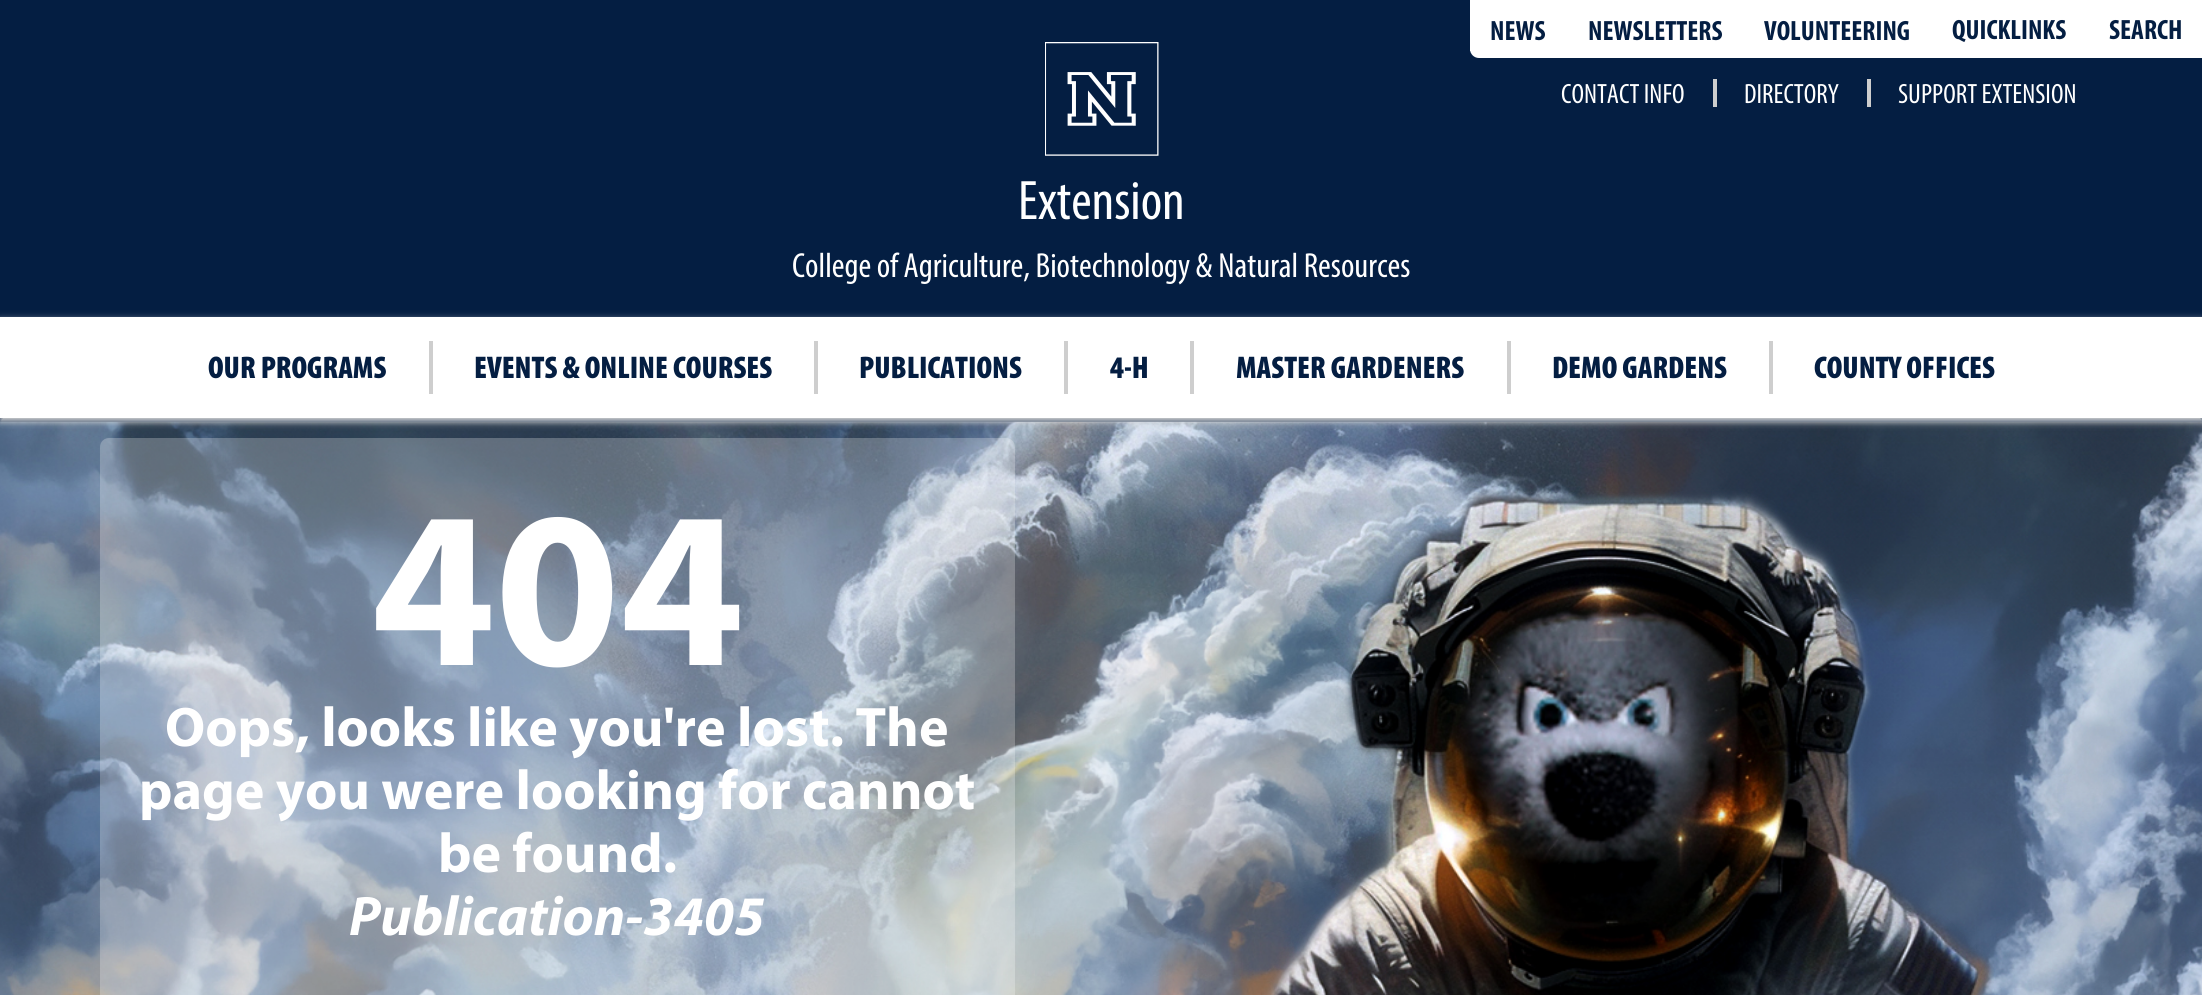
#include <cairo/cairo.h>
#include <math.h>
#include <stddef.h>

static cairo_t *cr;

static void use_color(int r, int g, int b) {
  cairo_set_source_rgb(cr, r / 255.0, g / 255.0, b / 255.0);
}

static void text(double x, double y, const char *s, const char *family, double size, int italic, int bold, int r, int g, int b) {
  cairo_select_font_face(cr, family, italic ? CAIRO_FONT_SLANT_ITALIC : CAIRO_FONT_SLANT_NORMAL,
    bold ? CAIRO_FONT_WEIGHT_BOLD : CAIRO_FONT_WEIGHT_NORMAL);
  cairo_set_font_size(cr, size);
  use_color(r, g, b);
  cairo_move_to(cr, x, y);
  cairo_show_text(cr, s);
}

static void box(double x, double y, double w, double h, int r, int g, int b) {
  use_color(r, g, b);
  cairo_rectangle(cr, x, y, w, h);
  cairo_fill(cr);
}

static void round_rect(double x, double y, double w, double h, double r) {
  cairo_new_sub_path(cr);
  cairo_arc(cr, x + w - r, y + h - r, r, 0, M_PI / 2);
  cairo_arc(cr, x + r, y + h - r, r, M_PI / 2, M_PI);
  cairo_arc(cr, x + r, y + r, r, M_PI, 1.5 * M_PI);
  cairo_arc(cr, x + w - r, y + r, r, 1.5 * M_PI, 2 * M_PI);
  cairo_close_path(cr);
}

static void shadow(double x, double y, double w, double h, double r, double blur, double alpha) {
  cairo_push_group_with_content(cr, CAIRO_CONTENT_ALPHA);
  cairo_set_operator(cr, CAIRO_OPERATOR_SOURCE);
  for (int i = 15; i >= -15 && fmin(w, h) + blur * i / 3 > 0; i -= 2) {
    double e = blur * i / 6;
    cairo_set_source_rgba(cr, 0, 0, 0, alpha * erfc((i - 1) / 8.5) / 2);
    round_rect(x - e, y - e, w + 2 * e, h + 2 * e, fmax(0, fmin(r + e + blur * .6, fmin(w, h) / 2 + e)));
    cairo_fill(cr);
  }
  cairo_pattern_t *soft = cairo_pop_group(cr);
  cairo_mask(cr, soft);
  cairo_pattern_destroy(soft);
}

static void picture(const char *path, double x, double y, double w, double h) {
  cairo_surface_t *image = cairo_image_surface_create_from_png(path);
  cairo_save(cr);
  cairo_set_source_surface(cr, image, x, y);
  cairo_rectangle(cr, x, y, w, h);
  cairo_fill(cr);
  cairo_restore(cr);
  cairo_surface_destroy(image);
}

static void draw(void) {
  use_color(4, 30, 66);
  cairo_paint(cr);
  use_color(255, 255, 255);
  cairo_new_path(cr);
  cairo_move_to(cr, 1470, 0);
  cairo_line_to(cr, 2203, 0);
  cairo_line_to(cr, 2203, 58);
  cairo_line_to(cr, 1479, 58);
  cairo_curve_to(cr, 1474, 58, 1470, 54, 1470, 49);
  cairo_close_path(cr);
  cairo_fill(cr);
  box(1470, 49, 1, 2, 255, 255, 255);
  box(1713, 79, 4, 28, 206, 206, 206);
  box(1867, 79, 4, 28, 206, 206, 206);
  picture("img_01.png", 1045, 42, 114, 114);
  picture("img_02.png", 0, 421, 2202, 574);
  use_color(216, 216, 216);
  shadow(0, 320, 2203, 102, 0, 3.5, 1);
  box(0, 317, 2202, 101, 255, 255, 255);
  box(429, 341, 4, 53, 206, 206, 206);
  box(814, 341, 4, 53, 206, 206, 206);
  box(1064, 341, 4, 53, 206, 206, 206);
  box(1190, 341, 4, 53, 206, 206, 206);
  box(1507, 341, 4, 53, 206, 206, 206);
  box(1769, 341, 4, 53, 206, 206, 206);
  cairo_set_source_rgba(cr, 1, 1, 1, 0.25);
  round_rect(100, 438, 915, 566, 9);
  cairo_fill(cr);
  picture("img_03.png", 1262, 489, 732, 506);
  text(1490, 40, "NEWS", "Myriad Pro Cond", 28, 0, 1, 4, 30, 66);
  text(1588, 40, "NEWSLETTERS", "Myriad Pro Cond", 28, 0, 1, 4, 30, 66);
  text(1764, 40, "VOLUNTEERING", "Myriad Pro Cond", 28, 0, 1, 4, 30, 66);
  text(1952, 39, "QUICKLINKS", "Myriad Pro Cond", 28, 0, 1, 4, 30, 66);
  text(2109, 39, "SEARCH", "Myriad Pro Cond", 28, 0, 1, 4, 30, 66);
  text(1561, 103, "CONTACT INFO", "Myriad Pro Cond", 28, 0, 0, 255, 255, 255);
  text(1744, 103, "DIRECTORY", "Myriad Pro Cond", 28, 0, 0, 255, 255, 255);
  text(1898, 103, "SUPPORT EXTENSION", "Myriad Pro Cond", 28, 0, 0, 255, 255, 255);
  text(1018, 219, "Extension", "Myriad Pro Cond", 56, 0, 0, 255, 255, 255);
  text(792, 277, "College of Agriculture, Biotechnology & Natural Resources", "Myriad Pro Cond", 35, 0, 0, 255, 255, 255);
  text(208, 378, "OUR PROGRAMS", "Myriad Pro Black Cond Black", 31.5, 0, 0, 4, 30, 66);
  text(474, 378, "EVENTS & ONLINE COURSES", "Myriad Pro Black Cond Black", 31.5, 0, 0, 4, 30, 66);
  text(859, 378, "PUBLICATIONS", "Myriad Pro Black Cond Black", 31.5, 0, 0, 4, 30, 66);
  text(1110, 378, "4-H", "Myriad Pro Black Cond Black", 31.5, 0, 0, 4, 30, 66);
  text(1236, 378, "MASTER GARDENERS", "Myriad Pro Black Cond Black", 31.5, 0, 0, 4, 30, 66);
  text(1552, 378, "DEMO GARDENS", "Myriad Pro Black Cond Black", 31.5, 0, 0, 4, 30, 66);
  text(1814, 378, "COUNTY OFFICES", "Myriad Pro Black Cond Black", 31.5, 0, 0, 4, 30, 66);
  text(371, 665, "404", "Myriad", 224, 0, 1, 255, 255, 255);
  text(165, 746, "Oops, looks like you're lost. The", "Myriad", 56, 0, 1, 255, 255, 255);
  text(139, 809, "page you were looking for cannot", "Myriad", 56, 0, 1, 255, 255, 255);
  text(438, 872, "be found.", "Myriad", 56, 0, 1, 255, 255, 255);
  text(349, 935, "Publication-3405", "Myriad", 56, 1, 1, 255, 255, 255);
}

int main(void) {
  cairo_surface_t *surface = cairo_image_surface_create(CAIRO_FORMAT_RGB24, 2202, 995);
  cr = cairo_create(surface);
  cairo_font_options_t *options = cairo_font_options_create();
  cairo_font_options_set_hint_metrics(options, CAIRO_HINT_METRICS_OFF);
  cairo_font_options_set_hint_style(options, CAIRO_HINT_STYLE_NONE);
  cairo_set_font_options(cr, options);
  cairo_set_miter_limit(cr, 4);
  draw();
  cairo_surface_write_to_png(surface, "out.png");
  cairo_font_options_destroy(options);
  cairo_destroy(cr);
  cairo_surface_destroy(surface);
  return 0;
}
